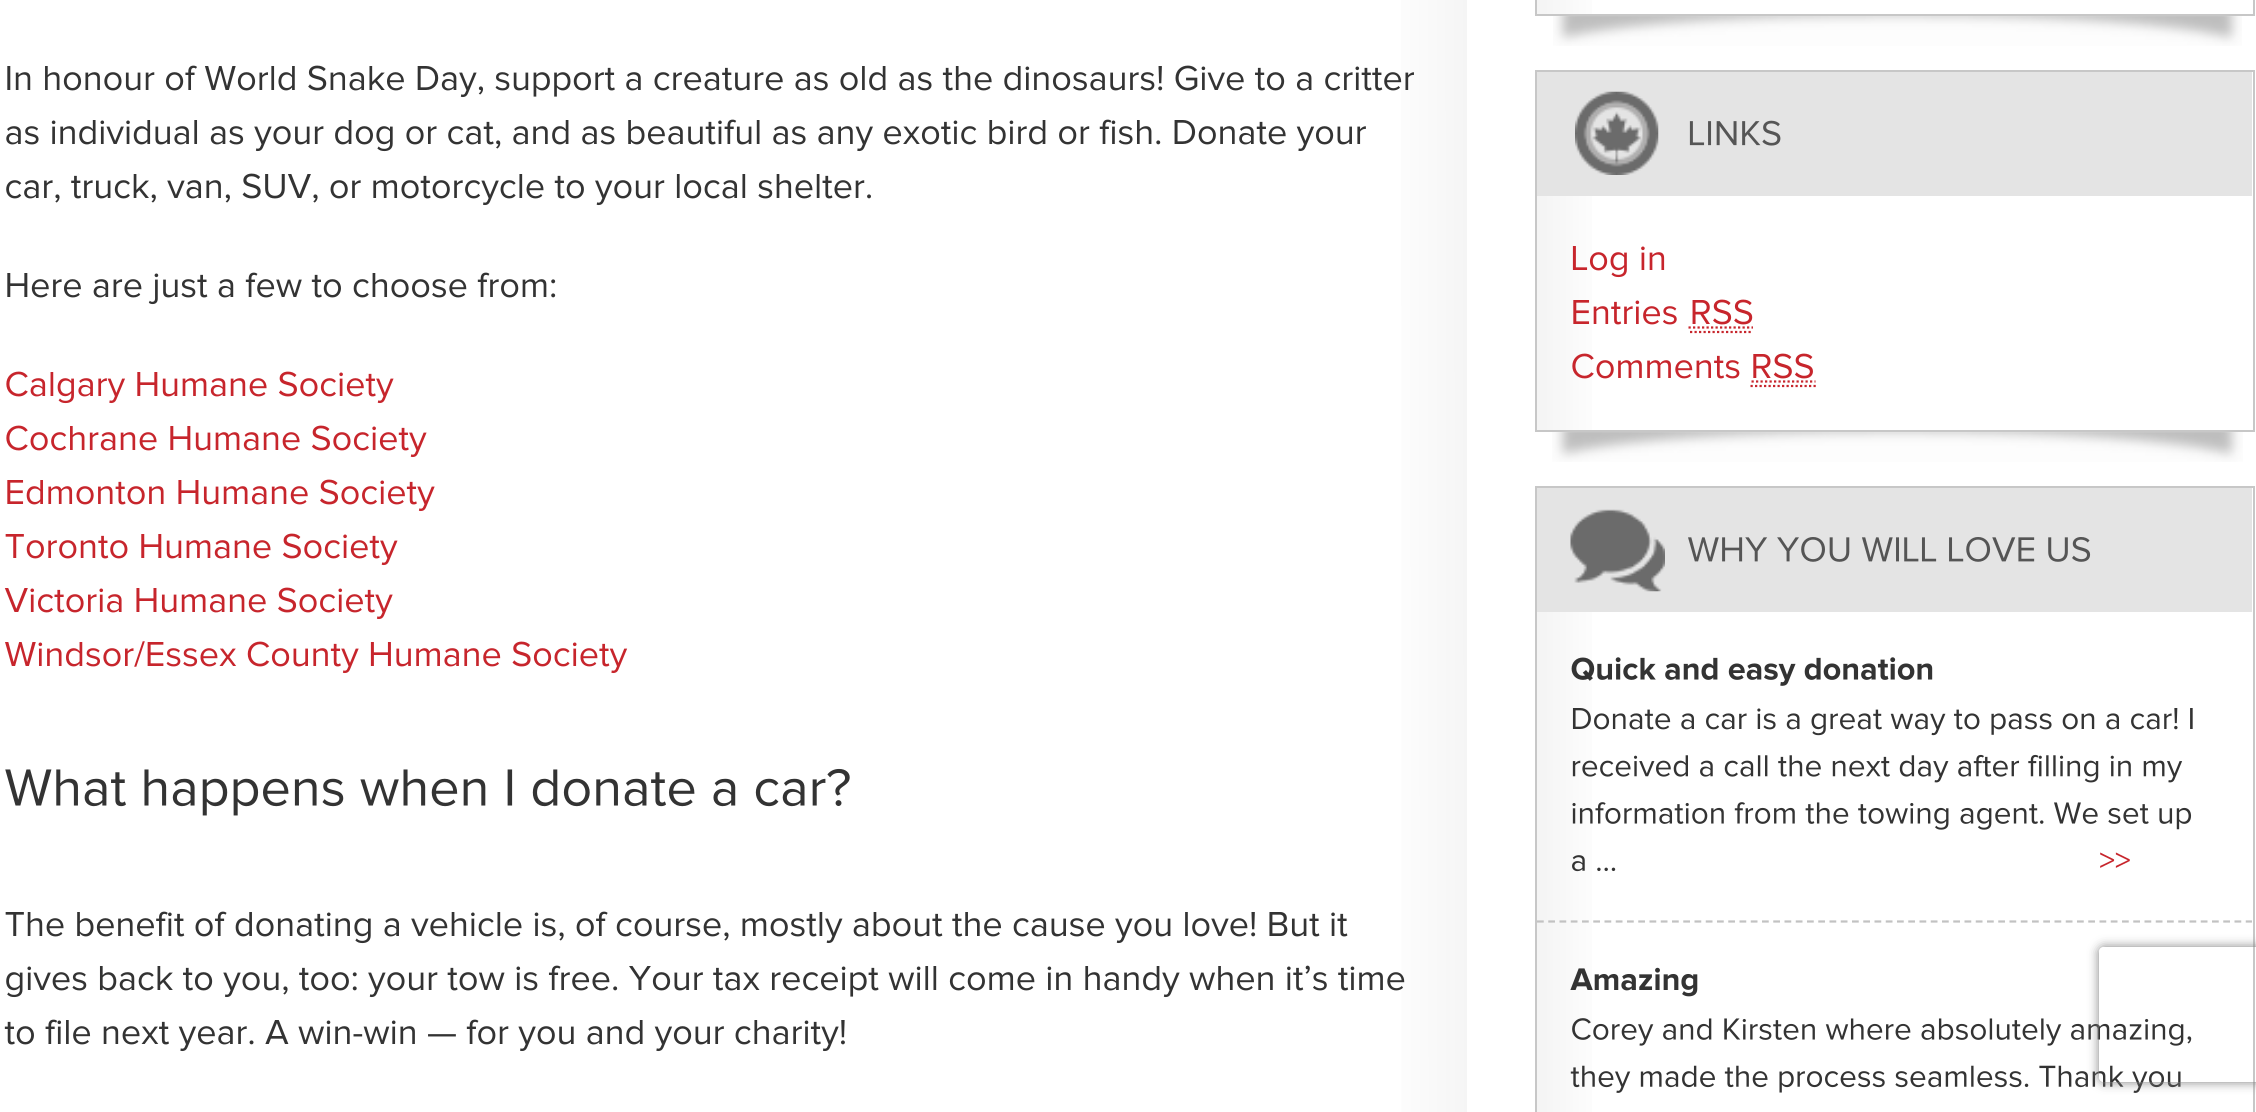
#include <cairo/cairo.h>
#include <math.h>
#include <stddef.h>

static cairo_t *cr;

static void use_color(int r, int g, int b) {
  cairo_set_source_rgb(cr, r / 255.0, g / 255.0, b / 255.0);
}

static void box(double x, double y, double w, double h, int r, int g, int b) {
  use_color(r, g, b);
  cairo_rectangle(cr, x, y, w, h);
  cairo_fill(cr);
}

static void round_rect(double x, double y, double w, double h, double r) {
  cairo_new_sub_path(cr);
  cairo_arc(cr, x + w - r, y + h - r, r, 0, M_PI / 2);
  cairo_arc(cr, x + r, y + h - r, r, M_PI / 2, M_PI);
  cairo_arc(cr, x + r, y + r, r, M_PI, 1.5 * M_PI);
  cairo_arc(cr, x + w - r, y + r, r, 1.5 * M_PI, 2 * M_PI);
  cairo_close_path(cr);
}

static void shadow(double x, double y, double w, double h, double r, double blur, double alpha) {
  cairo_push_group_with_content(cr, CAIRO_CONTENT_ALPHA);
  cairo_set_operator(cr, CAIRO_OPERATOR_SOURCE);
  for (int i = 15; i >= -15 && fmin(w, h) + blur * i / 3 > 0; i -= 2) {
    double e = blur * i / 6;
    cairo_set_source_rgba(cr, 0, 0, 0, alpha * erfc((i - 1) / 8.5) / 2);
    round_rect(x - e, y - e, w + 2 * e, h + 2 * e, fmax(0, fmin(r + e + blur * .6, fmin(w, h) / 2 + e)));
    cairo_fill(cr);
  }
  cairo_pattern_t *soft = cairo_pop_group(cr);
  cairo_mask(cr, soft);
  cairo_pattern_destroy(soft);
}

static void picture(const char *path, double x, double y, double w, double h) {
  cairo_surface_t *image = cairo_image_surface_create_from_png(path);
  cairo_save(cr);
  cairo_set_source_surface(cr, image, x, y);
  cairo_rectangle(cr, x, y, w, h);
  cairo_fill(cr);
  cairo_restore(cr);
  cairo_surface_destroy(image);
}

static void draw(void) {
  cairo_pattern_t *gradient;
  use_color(255, 255, 255);
  cairo_paint(cr);
  gradient = cairo_pattern_create_linear(4.5, 50, 1467, 49);
  cairo_pattern_add_color_stop_rgba(gradient, 0, 1, 1, 1, 1);
  cairo_pattern_add_color_stop_rgba(gradient, 0.94, 1, 1, 1, 1);
  cairo_pattern_add_color_stop_rgba(gradient, 1, 0.961, 0.961, 0.961, 1);
  cairo_set_source(cr, gradient);
  cairo_pattern_destroy(gradient);
  cairo_rectangle(cr, 1401, 0, 66, 1112);
  cairo_fill(cr);
  picture("img_01.png", 7, 65, 1407, 33);
  picture("img_02.png", 6, 119, 1360, 33);
  picture("img_03.png", 6, 173, 865, 33);
  picture("img_04.png", 7, 272, 549, 33);
  picture("img_05.png", 6, 371, 388, 33);
  picture("img_06.png", 6, 425, 421, 33);
  picture("img_07.png", 7, 479, 428, 33);
  picture("img_08.png", 5, 533, 393, 33);
  picture("img_09.png", 4, 587, 389, 32);
  picture("img_10.png", 5, 641, 623, 33);
  picture("img_11.png", 5, 768, 845, 48);
  picture("img_12.png", 5, 911, 1343, 33);
  picture("img_13.png", 6, 965, 1399, 33);
  picture("img_14.png", 4, 1019, 841, 33);
  cairo_rectangle(cr, 1536, -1, 718, 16);
  use_color(199, 199, 199);
  cairo_stroke(cr);
  gradient = cairo_pattern_create_linear(1537, -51, 2252, -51);
  cairo_pattern_add_color_stop_rgba(gradient, 0, 0.957, 0.957, 0.957, 1);
  cairo_pattern_add_color_stop_rgba(gradient, 0.1, 1, 1, 1, 1);
  cairo_set_source(cr, gradient);
  cairo_pattern_destroy(gradient);
  cairo_rectangle(cr, 1537, 0, 55, 14);
  cairo_fill(cr);
  picture("img_15.png", 1553, 16, 689, 30);
  cairo_rectangle(cr, 1536, 71, 718, 360);
  use_color(199, 199, 199);
  cairo_stroke(cr);
  box(1537, 72, 715, 124, 228, 228, 228);
  picture("img_16.png", 1575, 91, 84, 84);
  picture("img_17.png", 1689, 120, 92, 26);
  gradient = cairo_pattern_create_linear(1537, 313, 2252, 313);
  cairo_pattern_add_color_stop_rgba(gradient, 0, 0.957, 0.957, 0.957, 1);
  cairo_pattern_add_color_stop_rgba(gradient, 0.1, 1, 1, 1, 1);
  cairo_set_source(cr, gradient);
  cairo_pattern_destroy(gradient);
  cairo_rectangle(cr, 1537, 196, 55, 234);
  cairo_fill(cr);
  picture("img_18.png", 1572, 246, 93, 32);
  picture("img_19.png", 1573, 300, 104, 25);
  picture("img_20.png", 1692, 299, 61, 26);
  cairo_new_path(cr);
  cairo_move_to(cr, 1688.5, 327.5);
  cairo_line_to(cr, 1753, 327.5);
  use_color(199, 37, 44);
  cairo_set_line_width(cr, 2.2);
  cairo_set_dash(cr, (double[]){2.25, 2.25}, 2, 0);
  cairo_stroke(cr);
  cairo_new_path(cr);
  cairo_move_to(cr, 1690, 332);
  cairo_line_to(cr, 1753, 332);
  cairo_stroke(cr);
  picture("img_21.png", 1572, 353, 168, 26);
  picture("img_22.png", 1753, 353, 60, 26);
  cairo_new_path(cr);
  cairo_move_to(cr, 1751.5, 381.5);
  cairo_line_to(cr, 1815.5, 381.5);
  cairo_stroke(cr);
  cairo_new_path(cr);
  cairo_move_to(cr, 1750.5, 386);
  cairo_line_to(cr, 1816, 386);
  cairo_stroke(cr);
  picture("img_23.png", 1552, 432, 691, 30);
  cairo_rectangle(cr, 1536, 487, 718, 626);
  use_color(199, 199, 199);
  cairo_set_line_width(cr, 2);
  cairo_set_dash(cr, NULL, 0, 0);
  cairo_stroke(cr);
  box(1537, 488, 715, 124, 228, 228, 228);
  picture("img_24.png", 1570, 509, 95, 83);
  picture("img_25.png", 1688, 537, 403, 25);
  gradient = cairo_pattern_create_linear(1537, 1054, 2252, 1054);
  cairo_pattern_add_color_stop_rgba(gradient, 0, 0.957, 0.957, 0.957, 1);
  cairo_pattern_add_color_stop_rgba(gradient, 0.1, 1, 1, 1, 1);
  cairo_set_source(cr, gradient);
  cairo_pattern_destroy(gradient);
  cairo_rectangle(cr, 1537, 612, 55, 500);
  cairo_fill(cr);
  cairo_new_path(cr);
  cairo_move_to(cr, 1537, 921.5);
  cairo_line_to(cr, 2252, 921.5);
  use_color(194, 194, 194);
  cairo_set_line_width(cr, 2.2);
  cairo_set_dash(cr, (double[]){6.75, 4.5}, 2, 0);
  cairo_stroke(cr);
  picture("img_26.png", 1571, 657, 362, 29);
  picture("img_27.png", 1572, 708, 621, 28);
  picture("img_28.png", 1572, 754, 611, 29);
  picture("img_29.png", 1572, 802, 620, 28);
  picture("img_30.png", 1572, 855, 44, 17);
  picture("img_31.png", 2100, 852, 30, 16);
  picture("img_32.png", 1570, 967, 128, 30);
  picture("img_33.png", 1572, 1018, 620, 28);
  picture("img_34.png", 1570, 1065, 611, 28);
  cairo_save(cr);
  cairo_set_fill_rule(cr, CAIRO_FILL_RULE_EVEN_ODD);
  cairo_new_path(cr);
  cairo_move_to(cr, 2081, 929);
  cairo_line_to(cr, 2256, 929);
  cairo_line_to(cr, 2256, 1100);
  cairo_line_to(cr, 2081, 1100);
  cairo_close_path(cr);
  cairo_move_to(cr, 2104, 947);
  cairo_line_to(cr, 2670, 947);
  cairo_curve_to(cr, 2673, 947, 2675, 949, 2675, 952);
  cairo_line_to(cr, 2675, 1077);
  cairo_curve_to(cr, 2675, 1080, 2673, 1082, 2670, 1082);
  cairo_line_to(cr, 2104, 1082);
  cairo_curve_to(cr, 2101, 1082, 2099, 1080, 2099, 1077);
  cairo_line_to(cr, 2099, 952);
  cairo_curve_to(cr, 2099, 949, 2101, 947, 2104, 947);
  cairo_close_path(cr);
  cairo_clip(cr);
  use_color(128, 128, 128);
  shadow(2099, 947, 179, 135, 5, 5.5, 1);
  cairo_restore(cr);
}

int main(void) {
  cairo_surface_t *surface = cairo_image_surface_create(CAIRO_FORMAT_RGB24, 2256, 1112);
  cr = cairo_create(surface);
  cairo_font_options_t *options = cairo_font_options_create();
  cairo_font_options_set_hint_metrics(options, CAIRO_HINT_METRICS_OFF);
  cairo_font_options_set_hint_style(options, CAIRO_HINT_STYLE_NONE);
  cairo_set_font_options(cr, options);
  cairo_set_miter_limit(cr, 4);
  draw();
  cairo_surface_write_to_png(surface, "out.png");
  cairo_font_options_destroy(options);
  cairo_destroy(cr);
  cairo_surface_destroy(surface);
  return 0;
}
